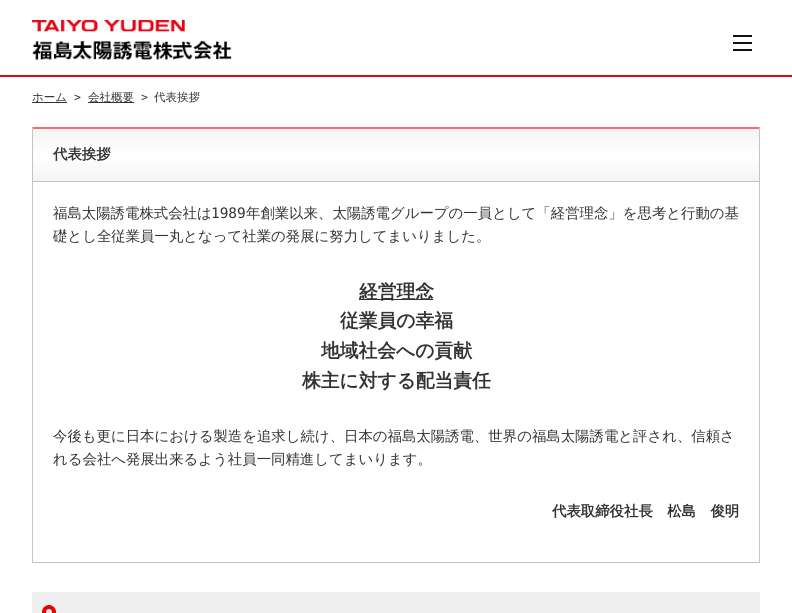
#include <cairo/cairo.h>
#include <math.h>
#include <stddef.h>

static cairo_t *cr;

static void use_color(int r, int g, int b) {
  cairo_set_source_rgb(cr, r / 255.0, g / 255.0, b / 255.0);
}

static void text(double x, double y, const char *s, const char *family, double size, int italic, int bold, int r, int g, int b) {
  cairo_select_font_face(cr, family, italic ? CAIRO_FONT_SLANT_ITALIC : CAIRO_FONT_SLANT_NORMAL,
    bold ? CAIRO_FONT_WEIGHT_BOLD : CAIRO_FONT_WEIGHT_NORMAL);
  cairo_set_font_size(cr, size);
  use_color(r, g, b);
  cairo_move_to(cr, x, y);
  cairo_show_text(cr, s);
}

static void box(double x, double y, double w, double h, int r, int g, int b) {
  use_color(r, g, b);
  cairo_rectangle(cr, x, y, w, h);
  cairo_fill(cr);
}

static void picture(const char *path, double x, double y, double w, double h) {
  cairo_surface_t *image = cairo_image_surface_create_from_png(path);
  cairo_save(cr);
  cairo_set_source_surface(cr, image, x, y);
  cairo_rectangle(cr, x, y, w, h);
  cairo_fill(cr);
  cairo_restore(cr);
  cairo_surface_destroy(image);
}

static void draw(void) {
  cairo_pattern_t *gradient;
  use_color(255, 255, 255);
  cairo_paint(cr);
  box(0, 75, 792, 2, 227, 0, 21);
  picture("img_01.png", 32, 20, 200, 40);
  box(733, 35, 19, 2, 17, 17, 17);
  box(733, 42, 19, 2, 17, 17, 17);
  box(733, 49, 19, 2, 17, 17, 17);
  box(32, 102, 35, 1, 51, 51, 51);
  box(88, 102, 46, 1, 51, 51, 51);
  use_color(251, 103, 106);
  cairo_new_path(cr);
  cairo_move_to(cr, 32, 127);
  cairo_line_to(cr, 760, 127);
  cairo_line_to(cr, 759, 129);
  cairo_line_to(cr, 33, 129);
  cairo_close_path(cr);
  cairo_fill(cr);
  use_color(195, 195, 195);
  cairo_new_path(cr);
  cairo_move_to(cr, 760, 127);
  cairo_line_to(cr, 760, 563);
  cairo_line_to(cr, 759, 562);
  cairo_line_to(cr, 759, 129);
  cairo_close_path(cr);
  cairo_fill(cr);
  box(32, 562, 728, 1, 195, 195, 195);
  cairo_new_path(cr);
  cairo_move_to(cr, 32, 563);
  cairo_line_to(cr, 32, 127);
  cairo_line_to(cr, 33, 129);
  cairo_line_to(cr, 33, 562);
  cairo_close_path(cr);
  cairo_fill(cr);
  gradient = cairo_pattern_create_linear(396, 129, 396, 181);
  cairo_pattern_add_color_stop_rgba(gradient, 0, 0.957, 0.957, 0.957, 1);
  cairo_pattern_add_color_stop_rgba(gradient, 0.5, 1, 1, 1, 1);
  cairo_pattern_add_color_stop_rgba(gradient, 1, 0.957, 0.957, 0.957, 1);
  cairo_set_source(cr, gradient);
  cairo_pattern_destroy(gradient);
  cairo_rectangle(cr, 33, 129, 726, 52);
  cairo_fill(cr);
  box(33, 181, 726, 1, 195, 195, 195);
  box(359, 299, 74, 1, 51, 51, 51);
  box(32, 592, 728, 21, 239, 239, 239);
  picture("img_02.png", 42, 605, 14, 8);
  text(32, 101, "ホーム", "WenQuanYi Zen Hei Medium", 11.5, 0, 0, 51, 51, 51);
  text(74, 101, ">", "DejaVu Sans Mono", 11.5, 0, 0, 51, 51, 51);
  text(88, 101, "会社概要", "WenQuanYi Zen Hei Medium", 11.5, 0, 0, 51, 51, 51);
  text(141, 101, ">", "DejaVu Sans Mono", 11.5, 0, 0, 51, 51, 51);
  text(154, 101, "代表挨拶", "WenQuanYi Zen Hei Medium", 11.5, 0, 0, 51, 51, 51);
  text(53, 159, "代表挨拶", "WenQuanYi Zen Hei", 14.4, 0, 1, 51, 51, 51);
  text(53, 218, "福島太陽誘電株式会社は", "WenQuanYi Zen Hei Medium", 14.4, 0, 0, 51, 51, 51);
  text(211, 218, "1989", "DejaVu Sans Mono", 14.4, 0, 0, 51, 51, 51);
  text(246, 218, "年創業以来、太陽誘電グループの一員として「経営理念」を思考と行動の基", "WenQuanYi Zen Hei Medium", 14.4, 0, 0, 51, 51, 51);
  text(53, 241, "礎とし全従業員一丸となって社業の発展に努力してまいりました。", "WenQuanYi Zen Hei Medium", 14.4, 0, 0, 51, 51, 51);
  text(359, 298, "経営理念", "WenQuanYi Zen Hei", 18.75, 0, 1, 51, 51, 51);
  text(340, 327, "従業員の幸福", "WenQuanYi Zen Hei", 18.75, 0, 1, 51, 51, 51);
  text(321, 357, "地域社会への貢献", "WenQuanYi Zen Hei", 18.75, 0, 1, 51, 51, 51);
  text(302, 387, "株主に対する配当責任", "WenQuanYi Zen Hei", 18.75, 0, 1, 51, 51, 51);
  text(53, 441, "今後も更に日本における製造を追求し続け、日本の福島太陽誘電、世界の福島太陽誘電と評され、信頼さ", "WenQuanYi Zen Hei Medium", 14.4, 0, 0, 51, 51, 51);
  text(53, 464, "れる会社へ発展出来るよう社員一同精進してまいります。", "WenQuanYi Zen Hei Medium", 14.4, 0, 0, 51, 51, 51);
  text(552, 516, "代表取締役社長　松島　俊明", "WenQuanYi Zen Hei", 14.4, 0, 1, 51, 51, 51);
}

int main(void) {
  cairo_surface_t *surface = cairo_image_surface_create(CAIRO_FORMAT_RGB24, 792, 613);
  cr = cairo_create(surface);
  cairo_font_options_t *options = cairo_font_options_create();
  cairo_font_options_set_hint_metrics(options, CAIRO_HINT_METRICS_OFF);
  cairo_font_options_set_hint_style(options, CAIRO_HINT_STYLE_NONE);
  cairo_set_font_options(cr, options);
  cairo_set_miter_limit(cr, 4);
  draw();
  cairo_surface_write_to_png(surface, "out.png");
  cairo_font_options_destroy(options);
  cairo_destroy(cr);
  cairo_surface_destroy(surface);
  return 0;
}
